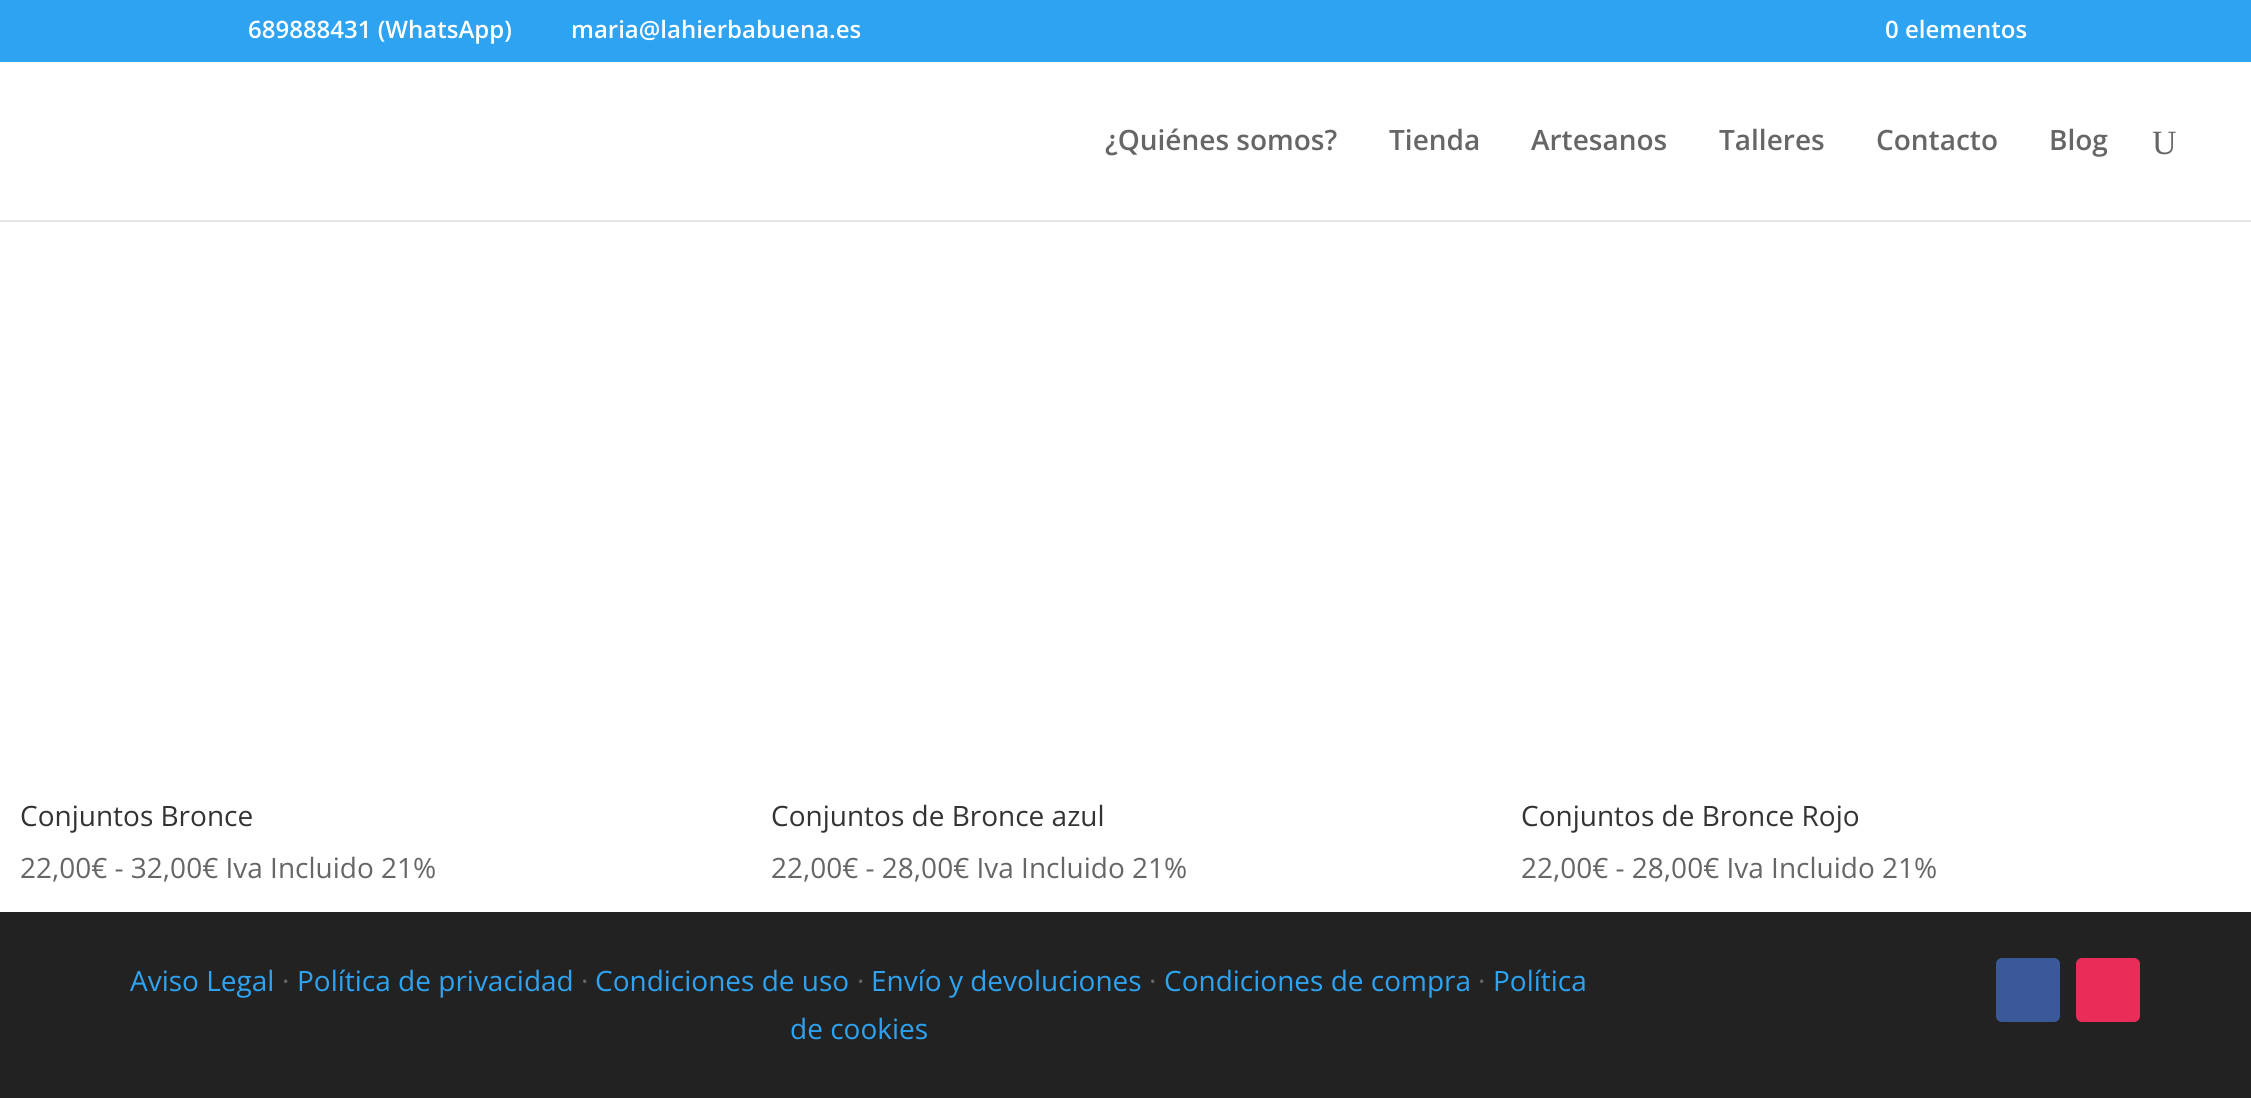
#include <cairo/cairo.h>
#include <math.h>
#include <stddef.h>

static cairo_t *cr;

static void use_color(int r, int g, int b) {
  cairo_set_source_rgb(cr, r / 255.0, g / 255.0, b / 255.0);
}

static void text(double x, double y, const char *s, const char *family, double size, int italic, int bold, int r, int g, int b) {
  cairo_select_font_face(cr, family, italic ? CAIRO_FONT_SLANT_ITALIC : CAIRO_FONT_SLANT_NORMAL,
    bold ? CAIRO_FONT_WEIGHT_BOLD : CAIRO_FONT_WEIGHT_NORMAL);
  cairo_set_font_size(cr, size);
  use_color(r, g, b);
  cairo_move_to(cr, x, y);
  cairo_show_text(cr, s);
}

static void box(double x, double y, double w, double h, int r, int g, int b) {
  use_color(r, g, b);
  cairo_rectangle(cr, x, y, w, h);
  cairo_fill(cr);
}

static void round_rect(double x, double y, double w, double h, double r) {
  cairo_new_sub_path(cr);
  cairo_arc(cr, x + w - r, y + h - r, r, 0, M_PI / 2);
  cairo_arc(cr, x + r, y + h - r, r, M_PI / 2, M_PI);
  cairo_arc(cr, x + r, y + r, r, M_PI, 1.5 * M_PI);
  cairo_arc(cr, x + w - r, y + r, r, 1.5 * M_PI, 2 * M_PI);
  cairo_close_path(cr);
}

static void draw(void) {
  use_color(255, 255, 255);
  cairo_paint(cr);
  box(0, 0, 2251, 62, 46, 163, 242);
  box(0, 220, 2251, 2, 230, 230, 230);
  box(0, 912, 2251, 186, 34, 34, 34);
  use_color(59, 89, 152);
  round_rect(1996, 958, 64, 64, 6);
  cairo_fill(cr);
  use_color(234, 44, 89);
  round_rect(2076, 958, 64, 64, 6);
  cairo_fill(cr);
  text(248, 38, "689888431 (WhatsApp)", "Open Sans SemiBold", 24, 0, 0, 255, 255, 255);
  text(571, 38, "maria@lahierbabuena.es", "Open Sans SemiBold", 24, 0, 0, 255, 255, 255);
  text(1885, 38, "0 elementos", "Open Sans SemiBold", 24, 0, 0, 255, 255, 255);
  text(1105, 150, "¿Quiénes somos?", "Open Sans SemiBold", 28, 0, 0, 102, 102, 102);
  text(1389, 150, "Tienda", "Open Sans SemiBold", 28, 0, 0, 102, 102, 102);
  text(1531, 150, "Artesanos", "Open Sans SemiBold", 28, 0, 0, 102, 102, 102);
  text(1719, 150, "Talleres", "Open Sans SemiBold", 28, 0, 0, 102, 102, 102);
  text(1876, 150, "Contacto", "Open Sans SemiBold", 28, 0, 0, 102, 102, 102);
  text(2049, 150, "Blog", "Open Sans SemiBold", 28, 0, 0, 102, 102, 102);
  text(2152, 154, "U", "Liberation Serif", 34, 0, 0, 102, 102, 102);
  text(20, 826, "Conjuntos Bronce", "Open Sans", 28, 0, 0, 51, 51, 51);
  text(20, 878, "22,00€ - 32,00€ Iva Incluido 21%", "Open Sans", 28, 0, 0, 102, 102, 102);
  text(771, 826, "Conjuntos de Bronce azul", "Open Sans", 28, 0, 0, 51, 51, 51);
  text(771, 878, "22,00€ - 28,00€ Iva Incluido 21%", "Open Sans", 28, 0, 0, 102, 102, 102);
  text(1521, 826, "Conjuntos de Bronce Rojo", "Open Sans", 28, 0, 0, 51, 51, 51);
  text(1521, 878, "22,00€ - 28,00€ Iva Incluido 21%", "Open Sans", 28, 0, 0, 102, 102, 102);
  text(130, 991, "Aviso Legal", "Open Sans", 28, 0, 0, 46, 163, 242);
  text(282, 991, "·", "Open Sans", 28, 0, 0, 102, 102, 102);
  text(297, 991, "Política de privacidad", "Open Sans", 28, 0, 0, 46, 163, 242);
  text(581, 991, "·", "Open Sans", 28, 0, 0, 102, 102, 102);
  text(595, 991, "Condiciones de uso", "Open Sans", 28, 0, 0, 46, 163, 242);
  text(857, 991, "·", "Open Sans", 28, 0, 0, 102, 102, 102);
  text(871, 991, "Envío y devoluciones", "Open Sans", 28, 0, 0, 46, 163, 242);
  text(1149, 991, "·", "Open Sans", 28, 0, 0, 102, 102, 102);
  text(1164, 991, "Condiciones de compra", "Open Sans", 28, 0, 0, 46, 163, 242);
  text(1478, 991, "·", "Open Sans", 28, 0, 0, 102, 102, 102);
  text(1493, 991, "Política", "Open Sans", 28, 0, 0, 46, 163, 242);
  text(790, 1039, "de cookies", "Open Sans", 28, 0, 0, 46, 163, 242);
}

int main(void) {
  cairo_surface_t *surface = cairo_image_surface_create(CAIRO_FORMAT_RGB24, 2251, 1098);
  cr = cairo_create(surface);
  cairo_font_options_t *options = cairo_font_options_create();
  cairo_font_options_set_hint_metrics(options, CAIRO_HINT_METRICS_OFF);
  cairo_font_options_set_hint_style(options, CAIRO_HINT_STYLE_NONE);
  cairo_set_font_options(cr, options);
  cairo_set_miter_limit(cr, 4);
  draw();
  cairo_surface_write_to_png(surface, "out.png");
  cairo_font_options_destroy(options);
  cairo_destroy(cr);
  cairo_surface_destroy(surface);
  return 0;
}
